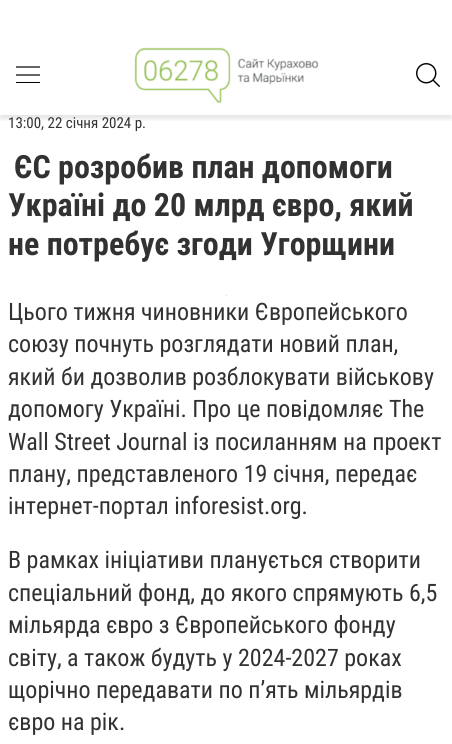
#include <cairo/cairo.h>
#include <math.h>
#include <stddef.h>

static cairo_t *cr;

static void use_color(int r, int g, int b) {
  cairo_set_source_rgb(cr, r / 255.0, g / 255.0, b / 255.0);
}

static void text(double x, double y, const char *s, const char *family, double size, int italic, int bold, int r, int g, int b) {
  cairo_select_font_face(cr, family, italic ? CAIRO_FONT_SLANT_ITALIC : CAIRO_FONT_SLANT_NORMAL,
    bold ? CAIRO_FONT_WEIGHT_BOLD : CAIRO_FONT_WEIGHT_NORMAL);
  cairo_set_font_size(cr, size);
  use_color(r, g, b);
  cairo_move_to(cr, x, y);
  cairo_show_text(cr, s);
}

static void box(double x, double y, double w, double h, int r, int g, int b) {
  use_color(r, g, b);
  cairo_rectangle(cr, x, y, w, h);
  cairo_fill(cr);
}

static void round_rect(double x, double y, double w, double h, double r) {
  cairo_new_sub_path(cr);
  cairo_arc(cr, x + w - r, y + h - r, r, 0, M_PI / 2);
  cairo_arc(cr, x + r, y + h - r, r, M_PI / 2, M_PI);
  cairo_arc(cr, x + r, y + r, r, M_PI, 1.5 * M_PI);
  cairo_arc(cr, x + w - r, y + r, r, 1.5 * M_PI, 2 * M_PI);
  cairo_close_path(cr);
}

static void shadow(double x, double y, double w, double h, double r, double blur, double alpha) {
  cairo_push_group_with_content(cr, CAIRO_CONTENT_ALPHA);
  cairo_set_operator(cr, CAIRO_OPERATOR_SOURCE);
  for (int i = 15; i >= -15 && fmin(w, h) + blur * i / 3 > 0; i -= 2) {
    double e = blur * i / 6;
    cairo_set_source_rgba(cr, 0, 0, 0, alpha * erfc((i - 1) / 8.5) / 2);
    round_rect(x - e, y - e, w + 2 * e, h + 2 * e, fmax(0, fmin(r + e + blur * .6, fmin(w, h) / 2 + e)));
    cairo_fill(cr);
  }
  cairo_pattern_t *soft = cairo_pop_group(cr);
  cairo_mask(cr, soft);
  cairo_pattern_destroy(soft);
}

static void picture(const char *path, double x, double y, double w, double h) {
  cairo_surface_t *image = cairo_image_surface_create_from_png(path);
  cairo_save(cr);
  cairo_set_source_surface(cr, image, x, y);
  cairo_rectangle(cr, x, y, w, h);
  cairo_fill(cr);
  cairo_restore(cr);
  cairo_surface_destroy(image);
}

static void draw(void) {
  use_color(255, 255, 255);
  cairo_paint(cr);
  cairo_save(cr);
  cairo_rectangle(cr, 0, 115, 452, 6);
  cairo_clip(cr);
  use_color(0, 0, 0);
  shadow(0, 36, 452, 83, 0, 2, 0.1);
  cairo_restore(cr);
  cairo_new_path(cr);
  cairo_move_to(cr, 16, 75);
  cairo_line_to(cr, 40, 75);
  cairo_move_to(cr, 16, 67);
  cairo_line_to(cr, 40, 67);
  use_color(0, 0, 0);
  cairo_set_line_width(cr, 1.2);
  cairo_stroke(cr);
  box(16, 82, 24, 1, 0, 0, 0);
  picture("img_01.png", 134, 47, 185, 56);
  picture("img_02.png", 416, 63, 24, 24);
  box(226, 295, 1, 1, 220, 220, 220);
  text(8, 128, "13:00, 22 січня 2024 р.", "Roboto Condensed", 15, 0, 0, 50, 50, 50);
  text(14, 178, "ЄС розробив план допомоги", "Roboto Condensed", 32, 0, 1, 50, 50, 50);
  text(8, 216, "Україні до 20 млрд євро, який", "Roboto Condensed", 32, 0, 1, 50, 50, 50);
  text(8, 255, "не потребує згоди Угорщини", "Roboto Condensed", 32, 0, 1, 50, 50, 50);
  text(8, 320, "Цього тижня чиновники Європейського", "Roboto Condensed", 24, 0, 0, 50, 50, 50);
  text(8, 352, "союзу почнуть розглядати новий план,", "Roboto Condensed", 24, 0, 0, 50, 50, 50);
  text(8, 385, "який би дозволив розблокувати військову", "Roboto Condensed", 24, 0, 0, 50, 50, 50);
  text(8, 417, "допомогу Україні. Про це повідомляє The", "Roboto Condensed", 24, 0, 0, 50, 50, 50);
  text(8, 450, "Wall Street Journal із посиланням на проект", "Roboto Condensed", 24, 0, 0, 50, 50, 50);
  text(8, 482, "плану, представленого 19 січня, передає", "Roboto Condensed", 24, 0, 0, 50, 50, 50);
  text(8, 514, "інтернет-портал inforesist.org.", "Roboto Condensed", 24, 0, 0, 50, 50, 50);
  text(8, 568, "В рамках ініціативи планується створити", "Roboto Condensed", 24, 0, 0, 50, 50, 50);
  text(8, 601, "спеціальний фонд, до якого спрямують 6,5", "Roboto Condensed", 24, 0, 0, 50, 50, 50);
  text(8, 633, "мільярда євро з Європейського фонду", "Roboto Condensed", 24, 0, 0, 50, 50, 50);
  text(8, 666, "світу, а також будуть у 2024-2027 роках", "Roboto Condensed", 24, 0, 0, 50, 50, 50);
  text(8, 698, "щорічно передавати по п’ять мільярдів", "Roboto Condensed", 24, 0, 0, 50, 50, 50);
  text(8, 730, "євро на рік.", "Roboto Condensed", 24, 0, 0, 50, 50, 50);
}

int main(void) {
  cairo_surface_t *surface = cairo_image_surface_create(CAIRO_FORMAT_RGB24, 452, 744);
  cr = cairo_create(surface);
  cairo_font_options_t *options = cairo_font_options_create();
  cairo_font_options_set_hint_metrics(options, CAIRO_HINT_METRICS_OFF);
  cairo_font_options_set_hint_style(options, CAIRO_HINT_STYLE_NONE);
  cairo_set_font_options(cr, options);
  cairo_set_miter_limit(cr, 4);
  draw();
  cairo_surface_write_to_png(surface, "out.png");
  cairo_font_options_destroy(options);
  cairo_destroy(cr);
  cairo_surface_destroy(surface);
  return 0;
}
